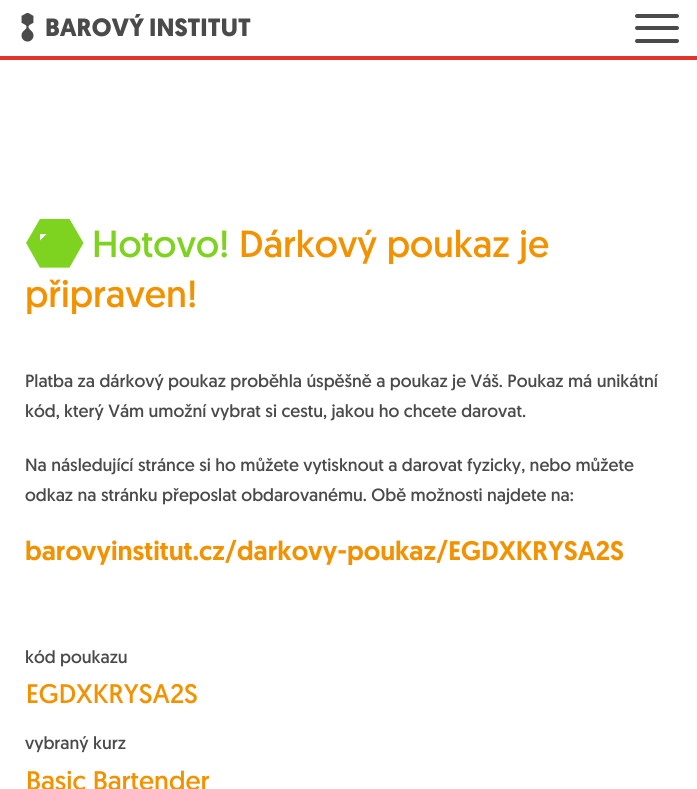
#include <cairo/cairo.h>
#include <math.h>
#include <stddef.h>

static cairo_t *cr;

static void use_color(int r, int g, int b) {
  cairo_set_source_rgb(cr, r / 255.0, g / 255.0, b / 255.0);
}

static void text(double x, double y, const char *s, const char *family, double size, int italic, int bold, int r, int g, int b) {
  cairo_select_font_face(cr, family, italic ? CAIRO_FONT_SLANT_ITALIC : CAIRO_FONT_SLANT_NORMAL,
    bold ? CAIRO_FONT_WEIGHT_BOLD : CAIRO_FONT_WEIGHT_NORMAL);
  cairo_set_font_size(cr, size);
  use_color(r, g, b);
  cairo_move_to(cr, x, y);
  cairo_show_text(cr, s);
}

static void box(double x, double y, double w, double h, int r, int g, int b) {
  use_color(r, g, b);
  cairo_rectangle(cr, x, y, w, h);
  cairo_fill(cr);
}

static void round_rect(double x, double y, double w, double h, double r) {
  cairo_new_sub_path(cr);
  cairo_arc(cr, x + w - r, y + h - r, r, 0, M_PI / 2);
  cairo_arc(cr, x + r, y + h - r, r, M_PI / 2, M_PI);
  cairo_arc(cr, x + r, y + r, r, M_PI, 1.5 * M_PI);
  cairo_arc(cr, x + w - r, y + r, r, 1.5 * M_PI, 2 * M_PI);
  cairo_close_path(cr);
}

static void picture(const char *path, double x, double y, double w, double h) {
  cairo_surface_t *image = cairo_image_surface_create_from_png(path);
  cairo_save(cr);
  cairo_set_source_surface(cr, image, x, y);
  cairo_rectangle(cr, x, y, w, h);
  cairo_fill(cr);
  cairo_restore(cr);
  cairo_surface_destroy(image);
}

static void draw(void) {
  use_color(255, 255, 255);
  cairo_paint(cr);
  box(0, 56, 697, 4, 230, 51, 42);
  picture("img_01.png", 21, 13, 13, 29);
  use_color(74, 74, 74);
  round_rect(635, 26, 44, 4, 2);
  cairo_fill(cr);
  round_rect(635, 14, 44, 4, 2);
  cairo_fill(cr);
  round_rect(635, 39, 44, 4, 2);
  cairo_fill(cr);
  use_color(126, 211, 33);
  cairo_new_path(cr);
  cairo_move_to(cr, 41, 220);
  cairo_line_to(cr, 28, 243);
  cairo_line_to(cr, 41, 266);
  cairo_line_to(cr, 69, 266);
  cairo_line_to(cr, 81, 243);
  cairo_line_to(cr, 69, 220);
  cairo_close_path(cr);
  cairo_fill(cr);
  cairo_new_path(cr);
  cairo_move_to(cr, 41, 220.5);
  cairo_line_to(cr, 28, 243);
  cairo_line_to(cr, 41, 266);
  cairo_line_to(cr, 68.5, 266);
  cairo_line_to(cr, 81.5, 243);
  cairo_line_to(cr, 68.5, 220.5);
  cairo_close_path(cr);
  cairo_set_line_width(cr, 1.1);
  cairo_stroke(cr);
  cairo_save(cr);
  cairo_rectangle(cr, 25, 219, 59, 50);
  cairo_clip(cr);
  cairo_new_path(cr);
  cairo_move_to(cr, 41, 220.5);
  cairo_line_to(cr, 28, 243);
  cairo_line_to(cr, 41, 266);
  cairo_line_to(cr, 68.5, 266);
  cairo_line_to(cr, 81.5, 243);
  cairo_line_to(cr, 68.5, 220.5);
  cairo_close_path(cr);
  cairo_set_line_width(cr, 3.4);
  cairo_stroke(cr);
  cairo_restore(cr);
  cairo_save(cr);
  cairo_rectangle(cr, 40, 234, 28, 20);
  cairo_clip(cr);
  use_color(255, 255, 255);
  cairo_new_path(cr);
  cairo_move_to(cr, 52.5, 228);
  cairo_line_to(cr, 48.5, 224);
  cairo_line_to(cr, 37, 235);
  cairo_line_to(cr, 31.5, 229.5);
  cairo_line_to(cr, 27.5, 233.5);
  cairo_line_to(cr, 37, 243.5);
  cairo_close_path(cr);
  cairo_fill(cr);
  cairo_restore(cr);
  text(45, 36, "BAROVÝ INSTITUT", "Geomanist", 25, 0, 1, 74, 74, 74);
  text(92, 257, "Hotovo!", "Geomanist", 37.75, 0, 0, 126, 211, 33);
  text(239, 257, "Dárkový poukaz je", "Geomanist", 37.75, 0, 0, 243, 146, 0);
  text(25, 307, "připraven!", "Geomanist", 37.75, 0, 0, 243, 146, 0);
  text(25, 387, "Platba za dárkový poukaz proběhla úspěšně a poukaz je Váš. Poukaz má unikátní", "Geomanist", 17.7, 0, 0, 74, 74, 74);
  text(25, 417, "kód, který Vám umožní vybrat si cestu, jakou ho chcete darovat.", "Geomanist", 17.7, 0, 0, 74, 74, 74);
  text(25, 471, "Na následující stránce si ho můžete vytisknout a darovat fyzicky, nebo můžete", "Geomanist", 17.7, 0, 0, 74, 74, 74);
  text(25, 501, "odkaz na stránku přeposlat obdarovanému. Obě možnosti najdete na:", "Geomanist", 17.7, 0, 0, 74, 74, 74);
  text(25, 560, "barovyinstitut.cz/darkovy-poukaz/EGDXKRYSA2S", "Geomanist Medium", 26.85, 0, 0, 243, 146, 0);
  text(25, 663, "kód poukazu", "Geomanist", 17.7, 0, 0, 74, 74, 74);
  text(26, 703, "EGDXKRYSA2S", "Geomanist", 26.85, 0, 0, 243, 146, 0);
  text(25, 749, "vybraný kurz", "Geomanist", 17.7, 0, 0, 74, 74, 74);
  text(26, 790, "Basic Bartender", "Geomanist", 26.85, 0, 0, 243, 146, 0);
}

int main(void) {
  cairo_surface_t *surface = cairo_image_surface_create(CAIRO_FORMAT_RGB24, 697, 789);
  cr = cairo_create(surface);
  cairo_font_options_t *options = cairo_font_options_create();
  cairo_font_options_set_hint_metrics(options, CAIRO_HINT_METRICS_OFF);
  cairo_font_options_set_hint_style(options, CAIRO_HINT_STYLE_NONE);
  cairo_set_font_options(cr, options);
  cairo_set_miter_limit(cr, 4);
  draw();
  cairo_surface_write_to_png(surface, "out.png");
  cairo_font_options_destroy(options);
  cairo_destroy(cr);
  cairo_surface_destroy(surface);
  return 0;
}
